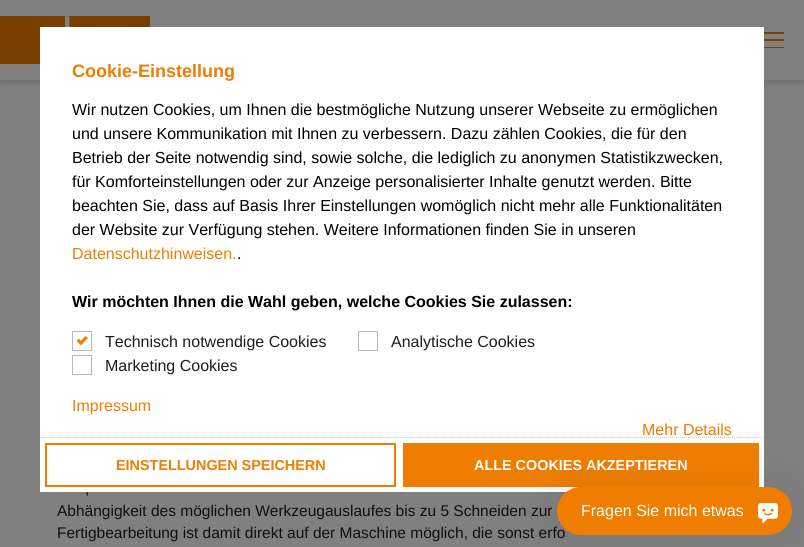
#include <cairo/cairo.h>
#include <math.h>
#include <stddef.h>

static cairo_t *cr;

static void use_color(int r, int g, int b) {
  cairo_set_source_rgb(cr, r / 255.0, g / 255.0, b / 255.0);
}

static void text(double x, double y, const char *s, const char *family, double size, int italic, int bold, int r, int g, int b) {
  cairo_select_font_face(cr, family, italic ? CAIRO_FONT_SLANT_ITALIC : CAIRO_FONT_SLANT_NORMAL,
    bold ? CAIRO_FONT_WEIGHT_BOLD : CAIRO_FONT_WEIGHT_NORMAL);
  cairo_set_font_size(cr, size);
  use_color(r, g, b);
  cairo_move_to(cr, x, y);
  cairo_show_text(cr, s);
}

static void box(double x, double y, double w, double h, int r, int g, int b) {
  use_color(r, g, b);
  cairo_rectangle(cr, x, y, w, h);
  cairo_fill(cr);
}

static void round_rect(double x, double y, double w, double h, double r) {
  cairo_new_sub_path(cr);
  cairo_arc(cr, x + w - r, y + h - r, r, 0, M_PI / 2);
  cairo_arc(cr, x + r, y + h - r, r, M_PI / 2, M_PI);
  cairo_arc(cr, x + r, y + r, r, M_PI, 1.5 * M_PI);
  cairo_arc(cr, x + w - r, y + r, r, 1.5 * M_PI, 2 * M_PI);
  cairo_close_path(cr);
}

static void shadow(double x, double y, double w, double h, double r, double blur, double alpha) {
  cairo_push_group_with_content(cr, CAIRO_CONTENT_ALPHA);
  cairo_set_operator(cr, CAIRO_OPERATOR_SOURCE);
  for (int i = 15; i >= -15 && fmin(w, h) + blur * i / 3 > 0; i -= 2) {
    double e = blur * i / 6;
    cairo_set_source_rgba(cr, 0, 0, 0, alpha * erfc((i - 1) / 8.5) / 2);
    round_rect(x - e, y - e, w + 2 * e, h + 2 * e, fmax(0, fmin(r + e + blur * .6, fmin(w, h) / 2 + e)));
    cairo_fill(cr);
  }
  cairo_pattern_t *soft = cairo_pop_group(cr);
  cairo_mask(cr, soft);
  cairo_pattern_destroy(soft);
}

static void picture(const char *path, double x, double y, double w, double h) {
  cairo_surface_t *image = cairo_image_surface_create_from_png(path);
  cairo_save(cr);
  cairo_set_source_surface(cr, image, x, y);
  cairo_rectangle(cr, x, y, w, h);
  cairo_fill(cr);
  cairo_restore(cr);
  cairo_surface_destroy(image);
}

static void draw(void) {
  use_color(128, 128, 128);
  cairo_paint(cr);
  use_color(0, 0, 0);
  shadow(0, 4, 804, 80, 0, 2, 0.12);
  box(0, 2, 804, 78, 128, 128, 128);
  picture("img_01.png", 0, 16, 150, 48);
  box(759, 32, 25, 2, 120, 63, 0);
  box(759, 39, 25, 2, 120, 63, 0);
  box(759, 47, 25, 1, 120, 63, 0);
  box(40, 27, 724, 465, 255, 255, 255);
  cairo_rectangle(cr, 72.5, 331.5, 19, 19);
  use_color(184, 184, 184);
  cairo_set_line_width(cr, 1);
  cairo_stroke(cr);
  use_color(239, 125, 0);
  cairo_new_path(cr);
  cairo_move_to(cr, 85.5, 336);
  cairo_line_to(cr, 88, 338);
  cairo_line_to(cr, 81, 345);
  cairo_line_to(cr, 78.5, 343);
  cairo_close_path(cr);
  cairo_fill(cr);
  cairo_new_path(cr);
  cairo_move_to(cr, 78.5, 338.5);
  cairo_line_to(cr, 83, 343);
  cairo_line_to(cr, 81, 345);
  cairo_line_to(cr, 76.5, 341);
  cairo_close_path(cr);
  cairo_fill(cr);
  cairo_rectangle(cr, 358.5, 331.5, 19, 19);
  use_color(184, 184, 184);
  cairo_stroke(cr);
  cairo_rectangle(cr, 72.5, 355.5, 19, 19);
  cairo_stroke(cr);
  cairo_new_path(cr);
  cairo_move_to(cr, 40, 437.5);
  cairo_line_to(cr, 764, 437.5);
  use_color(204, 204, 204);
  cairo_set_dash(cr, (double[]){1, 1}, 2, 0);
  cairo_stroke(cr);
  cairo_rectangle(cr, 46, 444, 349, 42);
  use_color(239, 125, 0);
  cairo_set_line_width(cr, 2);
  cairo_set_dash(cr, NULL, 0, 0);
  cairo_stroke(cr);
  box(403, 443, 356, 44, 239, 125, 0);
  use_color(0, 0, 0);
  shadow(549, 479, 251, 64, 32, 16, 0.06);
  text(72, 77, "Cookie-Einstellung", "Liberation Sans", 18, 0, 1, 239, 125, 0);
  text(72, 115, "Wir nutzen Cookies, um Ihnen die bestmögliche Nutzung unserer Webseite zu ermöglichen", "Liberation Sans", 16, 0, 0, 0, 0, 0);
  text(72, 139, "und unsere Kommunikation mit Ihnen zu verbessern. Dazu zählen Cookies, die für den", "Liberation Sans", 16, 0, 0, 0, 0, 0);
  text(72, 163, "Betrieb der Seite notwendig sind, sowie solche, die lediglich zu anonymen Statistikzwecken,", "Liberation Sans", 16, 0, 0, 0, 0, 0);
  text(72, 187, "für Komforteinstellungen oder zur Anzeige personalisierter Inhalte genutzt werden. Bitte", "Liberation Sans", 16, 0, 0, 0, 0, 0);
  text(72, 211, "beachten Sie, dass auf Basis Ihrer Einstellungen womöglich nicht mehr alle Funktionalitäten", "Liberation Sans", 16, 0, 0, 0, 0, 0);
  text(72, 235, "der Website zur Verfügung stehen. Weitere Informationen finden Sie in unseren", "Liberation Sans", 16, 0, 0, 0, 0, 0);
  text(72, 259, "Datenschutzhinweisen.", "Liberation Sans", 16, 0, 0, 239, 125, 0);
  text(237, 259, ".", "Liberation Sans", 16, 0, 0, 0, 0, 0);
  text(72, 307, "Wir möchten Ihnen die Wahl geben, welche Cookies Sie zulassen:", "Liberation Sans", 16, 0, 1, 0, 0, 0);
  text(105, 347, "Technisch notwendige Cookies", "Liberation Sans", 16, 0, 0, 29, 29, 27);
  text(391, 347, "Analytische Cookies", "Liberation Sans", 16, 0, 0, 29, 29, 27);
  text(105, 371, "Marketing Cookies", "Liberation Sans", 16, 0, 0, 29, 29, 27);
  text(72, 411, "Impressum", "Liberation Sans", 16, 0, 0, 239, 125, 0);
  text(642, 435, "Mehr Details", "Liberation Sans", 16, 0, 0, 239, 125, 0);
  text(116, 470, "EINSTELLUNGEN SPEICHERN", "Liberation Sans", 14.4, 0, 1, 239, 125, 0);
  text(474, 470, "ALLE COOKIES AKZEPTIEREN", "Liberation Sans", 14.4, 0, 1, 255, 255, 255);
  text(85, 494, ",", "Liberation Sans", 15.5, 0, 0, 15, 15, 14);
  text(57, 516, "Abhängigkeit des möglichen Werkzeugauslaufes bis zu 5 Schneiden zur", "Liberation Sans", 15.5, 0, 0, 15, 15, 14);
  text(57, 538, "Fertigbearbeitung ist damit direkt auf der Maschine möglich, die sonst erfo", "Liberation Sans", 15.5, 0, 0, 15, 15, 14);
  use_color(239, 125, 0);
  round_rect(557, 487, 235, 48, 24);
  cairo_fill(cr);
  text(581, 516, "Fragen Sie mich etwas", "Liberation Sans", 16, 0, 0, 255, 255, 255);
  picture("img_02.png", 758, 503, 20, 20);
}

int main(void) {
  cairo_surface_t *surface = cairo_image_surface_create(CAIRO_FORMAT_RGB24, 804, 547);
  cr = cairo_create(surface);
  cairo_font_options_t *options = cairo_font_options_create();
  cairo_font_options_set_hint_metrics(options, CAIRO_HINT_METRICS_OFF);
  cairo_font_options_set_hint_style(options, CAIRO_HINT_STYLE_NONE);
  cairo_set_font_options(cr, options);
  cairo_set_miter_limit(cr, 4);
  draw();
  cairo_surface_write_to_png(surface, "out.png");
  cairo_font_options_destroy(options);
  cairo_destroy(cr);
  cairo_surface_destroy(surface);
  return 0;
}
